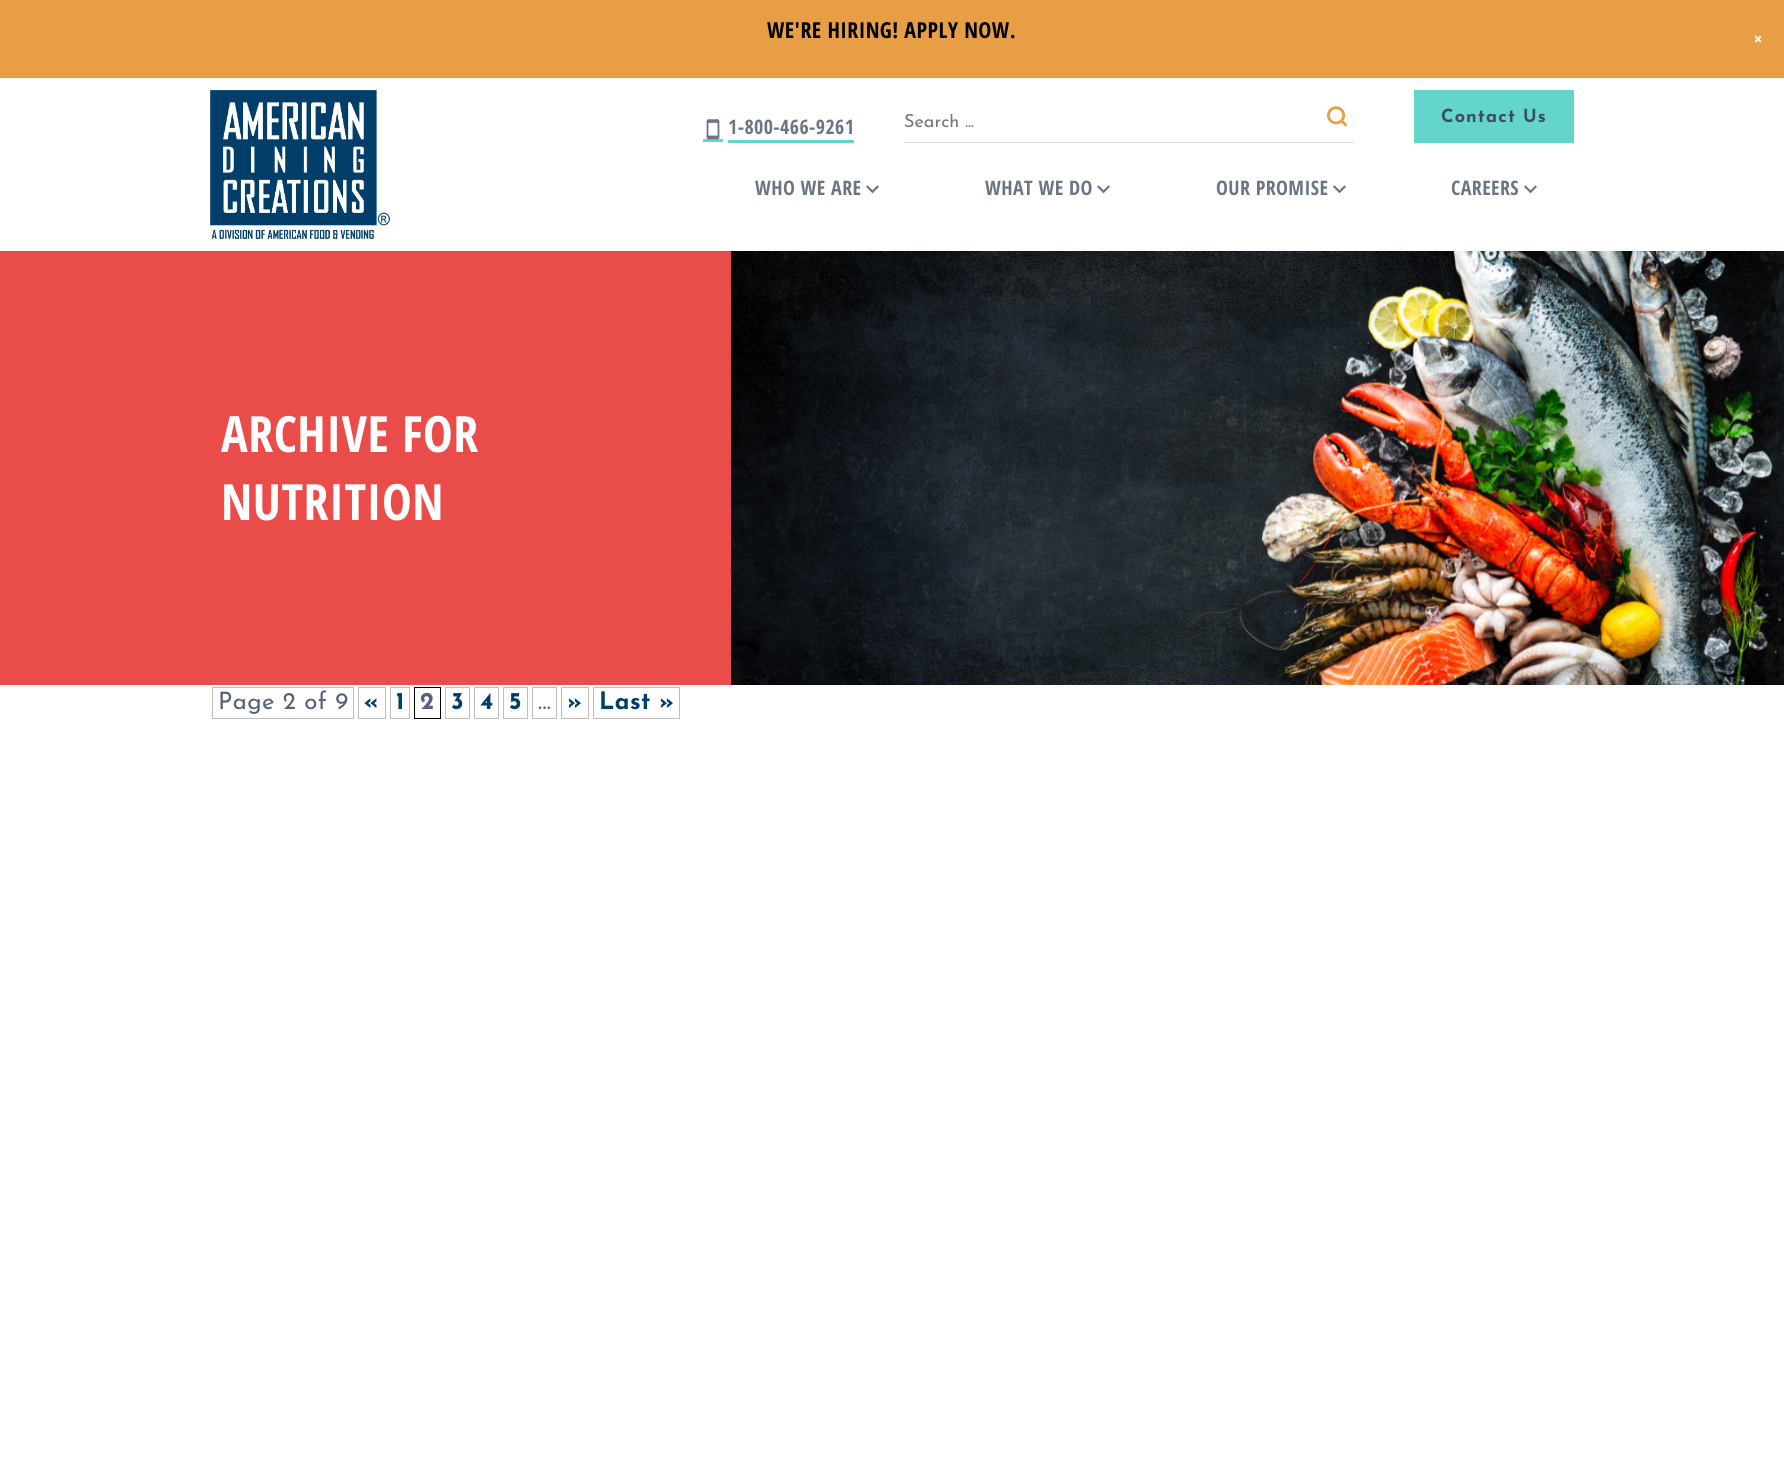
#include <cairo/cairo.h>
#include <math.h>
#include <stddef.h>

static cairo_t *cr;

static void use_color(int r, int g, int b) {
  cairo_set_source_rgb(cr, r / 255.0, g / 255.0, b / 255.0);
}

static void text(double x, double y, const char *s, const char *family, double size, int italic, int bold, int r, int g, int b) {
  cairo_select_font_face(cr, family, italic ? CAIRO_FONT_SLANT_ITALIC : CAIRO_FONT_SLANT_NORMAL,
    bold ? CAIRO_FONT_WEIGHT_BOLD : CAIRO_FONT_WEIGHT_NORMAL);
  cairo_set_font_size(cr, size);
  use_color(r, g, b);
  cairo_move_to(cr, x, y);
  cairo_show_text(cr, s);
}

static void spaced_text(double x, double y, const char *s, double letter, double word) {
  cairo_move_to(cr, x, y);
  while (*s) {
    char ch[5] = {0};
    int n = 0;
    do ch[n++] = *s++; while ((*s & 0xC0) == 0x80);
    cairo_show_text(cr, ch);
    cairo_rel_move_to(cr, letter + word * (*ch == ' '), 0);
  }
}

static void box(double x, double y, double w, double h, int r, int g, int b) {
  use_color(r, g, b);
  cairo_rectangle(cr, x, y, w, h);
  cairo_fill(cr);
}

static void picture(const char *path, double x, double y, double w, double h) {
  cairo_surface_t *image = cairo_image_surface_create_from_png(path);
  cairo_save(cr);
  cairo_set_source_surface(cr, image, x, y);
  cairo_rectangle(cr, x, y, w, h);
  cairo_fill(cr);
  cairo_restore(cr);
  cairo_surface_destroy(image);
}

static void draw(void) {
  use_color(255, 255, 255);
  cairo_paint(cr);
  box(0, 0, 1784, 78, 231, 158, 68);
  use_color(255, 255, 255);
  cairo_new_path(cr);
  cairo_move_to(cr, 1754.5, 41.5);
  cairo_line_to(cr, 1760, 35.5);
  cairo_line_to(cr, 1761.5, 37);
  cairo_line_to(cr, 1756, 42.5);
  cairo_close_path(cr);
  cairo_fill(cr);
  cairo_new_path(cr);
  cairo_move_to(cr, 1756, 35.5);
  cairo_line_to(cr, 1761.5, 41.5);
  cairo_line_to(cr, 1760, 42.5);
  cairo_line_to(cr, 1754.5, 37);
  cairo_close_path(cr);
  cairo_fill(cr);
  picture("img_01.png", 210, 90, 180, 149);
  box(703, 139, 20, 3, 99, 213, 204);
  box(728, 140, 126, 3, 99, 213, 204);
  picture("img_02.png", 706, 119, 14, 21);
  box(904, 142, 450, 1, 226, 227, 229);
  picture("img_03.png", 1327, 106, 20, 21);
  box(1414, 90, 160, 53, 99, 213, 204);
  picture("img_04.png", 866, 185, 13, 9);
  picture("img_04.png", 1097, 185, 13, 9);
  picture("img_04.png", 1333, 185, 13, 9);
  picture("img_04.png", 1524, 185, 13, 9);
  box(0, 251, 731, 434, 234, 76, 74);
  picture("img_05.png", 731, 251, 1053, 434);
  cairo_rectangle(cr, 212.5, 687.5, 141, 31);
  use_color(191, 191, 191);
  cairo_set_line_width(cr, 1);
  cairo_stroke(cr);
  cairo_rectangle(cr, 358.5, 687.5, 27, 31);
  cairo_stroke(cr);
  cairo_rectangle(cr, 390.5, 687.5, 19, 31);
  cairo_stroke(cr);
  cairo_rectangle(cr, 414.5, 687.5, 26, 31);
  use_color(0, 0, 0);
  cairo_stroke(cr);
  cairo_rectangle(cr, 445.5, 687.5, 24, 31);
  use_color(191, 191, 191);
  cairo_stroke(cr);
  cairo_rectangle(cr, 474.5, 687.5, 24, 31);
  cairo_stroke(cr);
  cairo_rectangle(cr, 503.5, 687.5, 24, 31);
  cairo_stroke(cr);
  cairo_rectangle(cr, 532.5, 687.5, 24, 31);
  cairo_stroke(cr);
  cairo_rectangle(cr, 561.5, 687.5, 27, 31);
  cairo_stroke(cr);
  cairo_rectangle(cr, 593.5, 687.5, 86, 31);
  cairo_stroke(cr);
  cairo_select_font_face(cr, "Open Sans Condensed", CAIRO_FONT_SLANT_NORMAL, CAIRO_FONT_WEIGHT_BOLD);
  cairo_set_font_size(cr, 22);
  use_color(0, 0, 0);
  spaced_text(767, 38, "WE'RE HIRING! APPLY NOW.", 0.4, 0);
  cairo_set_font_size(cr, 20);
  use_color(108, 117, 132);
  spaced_text(728, 134, "1-800-466-9261", 0.4, 0);
  cairo_save(cr);
  cairo_rectangle(cr, 904, 114, 426, 18);
  cairo_clip(cr);
  text(904, 127, "Search ...", "Josefin Sans", 18, 0, 0, 117, 117, 117);
  cairo_restore(cr);
  cairo_select_font_face(cr, "Josefin Sans", CAIRO_FONT_SLANT_NORMAL, CAIRO_FONT_WEIGHT_BOLD);
  cairo_set_font_size(cr, 18);
  use_color(64, 75, 95);
  spaced_text(1441, 122, "Contact Us", 1.1, 0);
  cairo_select_font_face(cr, "Open Sans Condensed", CAIRO_FONT_SLANT_NORMAL, CAIRO_FONT_WEIGHT_BOLD);
  cairo_set_font_size(cr, 20);
  use_color(108, 117, 132);
  spaced_text(755, 195, "WHO WE ARE", 0.4, 0);
  spaced_text(985, 195, "WHAT WE DO", 0.4, 0);
  spaced_text(1216, 195, "OUR PROMISE", 0.4, 0);
  spaced_text(1451, 195, "CAREERS", 0.4, 0);
  cairo_set_font_size(cr, 50);
  use_color(255, 255, 255);
  spaced_text(221, 452, "ARCHIVE FOR", 0.5, 0);
  spaced_text(221, 520, "NUTRITION", 0.5, 0);
  cairo_select_font_face(cr, "Josefin Sans", CAIRO_FONT_SLANT_NORMAL, CAIRO_FONT_WEIGHT_NORMAL);
  cairo_set_font_size(cr, 24);
  use_color(86, 98, 119);
  spaced_text(218, 709, "Page 2 of 9", 0.4, 0);
  cairo_select_font_face(cr, "Josefin Sans", CAIRO_FONT_SLANT_NORMAL, CAIRO_FONT_WEIGHT_BOLD);
  use_color(0, 63, 106);
  spaced_text(364, 709, "«", 0.4, 0);
  spaced_text(396, 709, "1", 0.4, 0);
  use_color(86, 98, 119);
  spaced_text(420, 709, "2", 0.4, 0);
  use_color(0, 63, 106);
  spaced_text(451, 709, "3", 0.4, 0);
  spaced_text(480, 709, "4", 0.4, 0);
  spaced_text(509, 709, "5", 0.4, 0);
  cairo_select_font_face(cr, "Josefin Sans", CAIRO_FONT_SLANT_NORMAL, CAIRO_FONT_WEIGHT_NORMAL);
  use_color(86, 98, 119);
  spaced_text(538, 709, "...", 0.4, 0);
  cairo_select_font_face(cr, "Josefin Sans", CAIRO_FONT_SLANT_NORMAL, CAIRO_FONT_WEIGHT_BOLD);
  use_color(0, 63, 106);
  spaced_text(567, 709, "»", 0.4, 0);
  spaced_text(599, 709, "Last »", 0.4, 0);
}

int main(void) {
  cairo_surface_t *surface = cairo_image_surface_create(CAIRO_FORMAT_RGB24, 1784, 1477);
  cr = cairo_create(surface);
  cairo_font_options_t *options = cairo_font_options_create();
  cairo_font_options_set_hint_metrics(options, CAIRO_HINT_METRICS_OFF);
  cairo_font_options_set_hint_style(options, CAIRO_HINT_STYLE_NONE);
  cairo_set_font_options(cr, options);
  cairo_set_miter_limit(cr, 4);
  draw();
  cairo_surface_write_to_png(surface, "out.png");
  cairo_font_options_destroy(options);
  cairo_destroy(cr);
  cairo_surface_destroy(surface);
  return 0;
}
